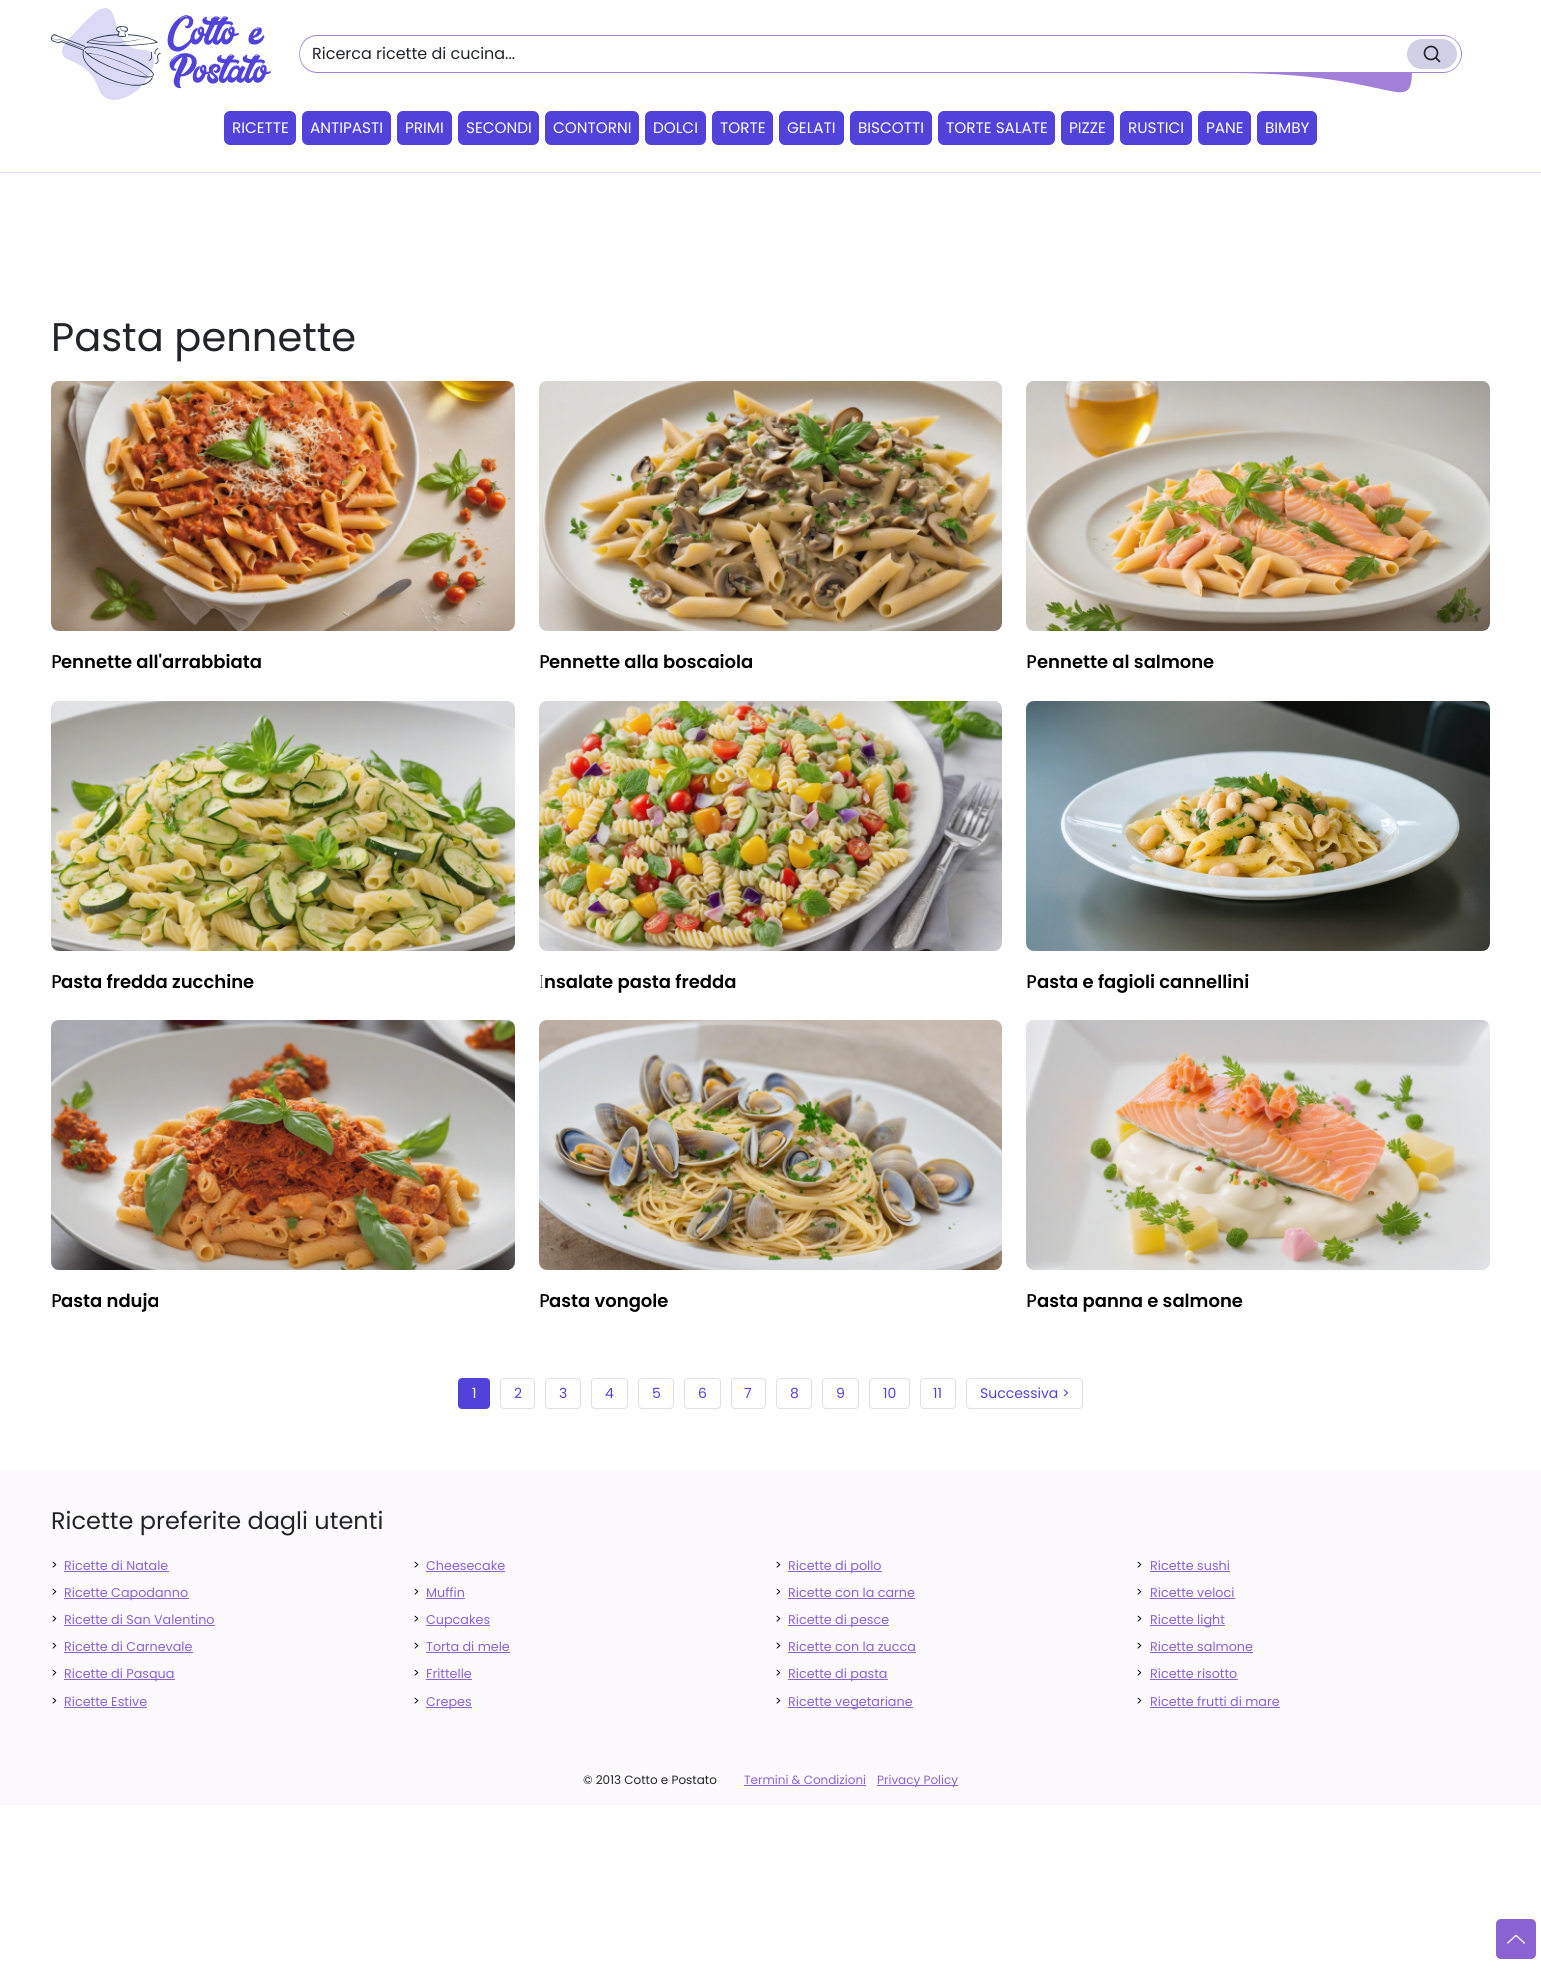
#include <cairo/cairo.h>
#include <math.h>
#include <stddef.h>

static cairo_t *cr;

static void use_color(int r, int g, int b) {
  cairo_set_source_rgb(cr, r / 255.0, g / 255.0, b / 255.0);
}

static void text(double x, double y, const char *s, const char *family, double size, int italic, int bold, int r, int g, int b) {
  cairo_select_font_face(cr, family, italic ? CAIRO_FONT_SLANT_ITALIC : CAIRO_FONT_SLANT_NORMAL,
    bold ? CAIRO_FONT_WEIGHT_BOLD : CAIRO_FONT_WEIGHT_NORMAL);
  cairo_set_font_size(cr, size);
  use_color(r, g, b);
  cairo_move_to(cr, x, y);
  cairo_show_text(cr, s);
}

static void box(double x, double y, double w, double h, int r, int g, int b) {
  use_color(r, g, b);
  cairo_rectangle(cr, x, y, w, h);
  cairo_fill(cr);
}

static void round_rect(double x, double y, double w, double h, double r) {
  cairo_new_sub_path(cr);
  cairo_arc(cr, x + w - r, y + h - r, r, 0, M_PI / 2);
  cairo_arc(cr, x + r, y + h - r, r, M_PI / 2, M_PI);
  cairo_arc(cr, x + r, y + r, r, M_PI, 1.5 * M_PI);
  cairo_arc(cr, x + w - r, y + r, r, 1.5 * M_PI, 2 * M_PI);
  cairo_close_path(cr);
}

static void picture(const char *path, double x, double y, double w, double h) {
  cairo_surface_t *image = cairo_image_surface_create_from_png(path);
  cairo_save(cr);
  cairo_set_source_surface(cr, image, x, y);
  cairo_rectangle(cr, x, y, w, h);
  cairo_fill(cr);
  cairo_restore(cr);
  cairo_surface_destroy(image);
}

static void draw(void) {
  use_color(255, 255, 255);
  cairo_paint(cr);
  box(0, 172, 1541, 1, 220, 217, 248);
  picture("img_01.png", 51, 8, 220, 92);
  use_color(161, 128, 218);
  cairo_set_fill_rule(cr, CAIRO_FILL_RULE_EVEN_ODD);
  cairo_new_path(cr);
  cairo_move_to(cr, 1411, 35);
  cairo_line_to(cr, 1443, 35);
  cairo_curve_to(cr, 1453, 35, 1462, 44, 1462, 54);
  cairo_curve_to(cr, 1462, 64, 1453, 73, 1443, 73);
  cairo_line_to(cr, 1411, 73);
  cairo_close_path(cr);
  cairo_move_to(cr, 1411, 36);
  cairo_line_to(cr, 1443, 36);
  cairo_curve_to(cr, 1453, 36, 1461, 44, 1461, 54);
  cairo_curve_to(cr, 1461, 64, 1453, 72, 1443, 72);
  cairo_line_to(cr, 1411, 72);
  cairo_close_path(cr);
  cairo_fill(cr);
  cairo_new_path(cr);
  cairo_move_to(cr, 318, 35);
  cairo_line_to(cr, 1412, 35);
  cairo_line_to(cr, 1412, 41);
  cairo_curve_to(cr, 1412, 133, 1422, 73, 1230, 73);
  cairo_line_to(cr, 318, 73);
  cairo_curve_to(cr, 293, 73, 293, 35, 318, 35);
  cairo_close_path(cr);
  cairo_move_to(cr, 318, 36);
  cairo_line_to(cr, 1412, 36);
  cairo_line_to(cr, 1412, 72);
  cairo_line_to(cr, 318, 72);
  cairo_curve_to(cr, 294, 72, 294, 36, 318, 36);
  cairo_close_path(cr);
  cairo_fill(cr);
  use_color(207, 207, 230);
  round_rect(1407, 39, 50, 30, 15);
  cairo_fill(cr);
  cairo_arc(cr, 1431, 53, 6.5, 0, 2 * M_PI);
  use_color(33, 37, 41);
  cairo_set_line_width(cr, 1.7);
  cairo_stroke(cr);
  cairo_new_path(cr);
  cairo_move_to(cr, 1439.5, 61.5);
  cairo_line_to(cr, 1436, 58);
  cairo_set_line_cap(cr, CAIRO_LINE_CAP_ROUND);
  cairo_set_line_join(cr, CAIRO_LINE_JOIN_ROUND);
  cairo_stroke(cr);
  use_color(81, 67, 217);
  round_rect(224, 111, 72, 34, 6);
  cairo_fill(cr);
  round_rect(302, 111, 89, 34, 6);
  cairo_fill(cr);
  round_rect(397, 111, 55, 34, 6);
  cairo_fill(cr);
  round_rect(458, 111, 81, 34, 6);
  cairo_fill(cr);
  round_rect(545, 111, 94, 34, 6);
  cairo_fill(cr);
  round_rect(645, 111, 61, 34, 6);
  cairo_fill(cr);
  round_rect(712, 111, 61, 34, 6);
  cairo_fill(cr);
  round_rect(779, 111, 65, 34, 6);
  cairo_fill(cr);
  round_rect(850, 111, 82, 34, 6);
  cairo_fill(cr);
  round_rect(938, 111, 117, 34, 6);
  cairo_fill(cr);
  round_rect(1061, 111, 53, 34, 6);
  cairo_fill(cr);
  round_rect(1120, 111, 72, 34, 6);
  cairo_fill(cr);
  round_rect(1198, 111, 53, 34, 6);
  cairo_fill(cr);
  round_rect(1257, 111, 60, 34, 6);
  cairo_fill(cr);
  picture("img_02.png", 51, 381, 464, 250);
  picture("img_03.png", 539, 381, 463, 250);
  picture("img_04.png", 1026, 381, 464, 250);
  picture("img_05.png", 51, 701, 464, 250);
  picture("img_06.png", 539, 701, 463, 250);
  picture("img_07.png", 1026, 701, 464, 250);
  picture("img_08.png", 51, 1020, 464, 250);
  picture("img_09.png", 539, 1020, 463, 250);
  picture("img_10.png", 1026, 1020, 464, 250);
  round_rect(458.5, 1378.5, 31, 30, 3.5);
  cairo_fill_preserve(cr);
  cairo_set_line_width(cr, 1);
  cairo_set_line_cap(cr, CAIRO_LINE_CAP_BUTT);
  cairo_set_line_join(cr, CAIRO_LINE_JOIN_MITER);
  cairo_stroke(cr);
  round_rect(500.5, 1378.5, 34, 30, 3.5);
  use_color(222, 226, 230);
  cairo_stroke(cr);
  round_rect(545.5, 1378.5, 35, 30, 3.5);
  cairo_stroke(cr);
  round_rect(591.5, 1378.5, 36, 30, 3.5);
  cairo_stroke(cr);
  round_rect(638.5, 1378.5, 35, 30, 3.5);
  cairo_stroke(cr);
  round_rect(684.5, 1378.5, 36, 30, 3.5);
  cairo_stroke(cr);
  round_rect(731.5, 1378.5, 34, 30, 3.5);
  cairo_stroke(cr);
  round_rect(776.5, 1378.5, 35, 30, 3.5);
  cairo_stroke(cr);
  round_rect(822.5, 1378.5, 36, 30, 3.5);
  cairo_stroke(cr);
  round_rect(869.5, 1378.5, 40, 30, 3.5);
  cairo_stroke(cr);
  round_rect(920.5, 1378.5, 35, 30, 3.5);
  cairo_stroke(cr);
  round_rect(966.5, 1378.5, 116, 30, 3.5);
  cairo_stroke(cr);
  box(0, 1471, 1541, 334, 252, 249, 255);
  box(64, 1571, 105, 1, 139, 98, 209);
  box(64, 1598, 125, 1, 139, 98, 209);
  box(64, 1625, 151, 1, 139, 98, 209);
  box(64, 1652, 129, 1, 139, 98, 209);
  box(64, 1679, 111, 1, 139, 98, 209);
  box(64, 1707, 83, 1, 139, 98, 209);
  box(426, 1571, 79, 1, 139, 98, 209);
  box(426, 1598, 39, 1, 139, 98, 209);
  box(426, 1625, 64, 1, 139, 98, 209);
  box(426, 1652, 84, 1, 139, 98, 209);
  box(426, 1679, 46, 1, 139, 98, 209);
  box(426, 1707, 46, 1, 139, 98, 209);
  box(788, 1571, 94, 1, 139, 98, 209);
  box(788, 1598, 127, 1, 139, 98, 209);
  box(788, 1625, 101, 1, 139, 98, 209);
  box(788, 1652, 128, 1, 139, 98, 209);
  box(788, 1679, 100, 1, 139, 98, 209);
  box(788, 1707, 125, 1, 139, 98, 209);
  box(1150, 1571, 80, 1, 139, 98, 209);
  box(1150, 1598, 85, 1, 139, 98, 209);
  box(1150, 1625, 75, 1, 139, 98, 209);
  box(1150, 1652, 103, 1, 139, 98, 209);
  box(1150, 1679, 88, 1, 139, 98, 209);
  box(1150, 1707, 130, 1, 139, 98, 209);
  box(744, 1785, 122, 1, 139, 98, 209);
  box(877, 1785, 81, 1, 139, 98, 209);
  round_rect(1496, 1919, 40, 40, 5);
  cairo_fill(cr);
  picture("img_11.png", 1507, 1934, 18, 10);
  text(312, 59, "Ricerca ricette di cucina...", "Poppins", 16, 0, 0, 33, 37, 41);
  text(232, 133, "RICETTE", "Poppins", 15.25, 0, 0, 255, 255, 255);
  text(310, 133, "ANTIPASTI", "Poppins", 15.25, 0, 0, 255, 255, 255);
  text(405, 133, "PRIMI", "Poppins", 15.25, 0, 0, 255, 255, 255);
  text(466, 133, "SECONDI", "Poppins", 15.25, 0, 0, 255, 255, 255);
  text(553, 133, "CONTORNI", "Poppins", 15.25, 0, 0, 255, 255, 255);
  text(653, 133, "DOLCI", "Poppins", 15.25, 0, 0, 255, 255, 255);
  text(720, 133, "TORTE", "Poppins", 15.25, 0, 0, 255, 255, 255);
  text(787, 133, "GELATI", "Poppins", 15.25, 0, 0, 255, 255, 255);
  text(858, 133, "BISCOTTI", "Poppins", 15.25, 0, 0, 255, 255, 255);
  text(946, 133, "TORTE SALATE", "Poppins", 15.25, 0, 0, 255, 255, 255);
  text(1069, 133, "PIZZE", "Poppins", 15.25, 0, 0, 255, 255, 255);
  text(1128, 133, "RUSTICI", "Poppins", 15.25, 0, 0, 255, 255, 255);
  text(1206, 133, "PANE", "Poppins", 15.25, 0, 0, 255, 255, 255);
  text(1265, 133, "BIMBY", "Poppins", 15.25, 0, 0, 255, 255, 255);
  text(51, 351, "Pasta pennette", "Poppins", 40, 0, 0, 33, 37, 41);
  text(51, 668, "P", "Noto Sans Medium", 18, 0, 0, 0, 0, 0);
  text(61, 668, "ennette all'arrabbiata", "Poppins SemiBold", 18, 0, 0, 0, 0, 0);
  text(539, 668, "P", "Noto Sans Medium", 18, 0, 0, 0, 0, 0);
  text(549, 668, "ennette alla boscaiola", "Poppins SemiBold", 18, 0, 0, 0, 0, 0);
  text(1026, 668, "P", "Noto Sans Medium", 18, 0, 0, 0, 0, 0);
  text(1037, 668, "ennette al salmone", "Poppins SemiBold", 18, 0, 0, 0, 0, 0);
  text(51, 988, "P", "Noto Sans Medium", 18, 0, 0, 0, 0, 0);
  text(61, 988, "asta fredda zucchine", "Poppins SemiBold", 18, 0, 0, 0, 0, 0);
  text(539, 988, "I", "Noto Sans Thin", 18, 0, 0, 0, 0, 0);
  text(544, 988, "nsalate pasta fredda", "Poppins SemiBold", 18, 0, 0, 0, 0, 0);
  text(1026, 988, "P", "Noto Sans Medium", 18, 0, 0, 0, 0, 0);
  text(1037, 988, "asta e fagioli cannellini", "Poppins SemiBold", 18, 0, 0, 0, 0, 0);
  text(51, 1307, "P", "Noto Sans Medium", 18, 0, 0, 0, 0, 0);
  text(61, 1307, "asta nduja", "Poppins SemiBold", 18, 0, 0, 0, 0, 0);
  text(539, 1307, "P", "Noto Sans Medium", 18, 0, 0, 0, 0, 0);
  text(549, 1307, "asta vongole", "Poppins SemiBold", 18, 0, 0, 0, 0, 0);
  text(1026, 1307, "P", "Noto Sans Medium", 18, 0, 0, 0, 0, 0);
  text(1037, 1307, "asta panna e salmone", "Poppins SemiBold", 18, 0, 0, 0, 0, 0);
  text(472, 1398, "1", "Poppins", 14, 0, 0, 255, 255, 255);
  text(514, 1398, "2", "Poppins", 14, 0, 0, 81, 67, 217);
  text(559, 1398, "3", "Poppins", 14, 0, 0, 81, 67, 217);
  text(605, 1398, "4", "Poppins", 14, 0, 0, 81, 67, 217);
  text(652, 1398, "5", "Poppins", 14, 0, 0, 81, 67, 217);
  text(698, 1398, "6", "Poppins", 14, 0, 0, 81, 67, 217);
  text(744, 1398, "7", "Poppins", 14, 0, 0, 81, 67, 217);
  text(790, 1398, "8", "Poppins", 14, 0, 0, 81, 67, 217);
  text(836, 1398, "9", "Poppins", 14, 0, 0, 81, 67, 217);
  text(883, 1398, "10", "Poppins", 14, 0, 0, 81, 67, 217);
  text(933, 1398, "11", "Poppins", 14, 0, 0, 81, 67, 217);
  text(980, 1398, "Successiva >", "Poppins", 14, 0, 0, 81, 67, 217);
  text(51, 1529, "Ricette preferite dagli utenti", "Poppins", 24, 0, 0, 33, 37, 41);
  text(51, 1569, ">", "Poppins", 12, 0, 0, 0, 0, 0);
  text(64, 1570, "Ricette di Natale", "Poppins", 12.75, 0, 0, 139, 98, 209);
  text(51, 1596, ">", "Poppins", 12, 0, 0, 0, 0, 0);
  text(64, 1597, "Ricette Capodanno", "Poppins", 12.75, 0, 0, 139, 98, 209);
  text(51, 1623, ">", "Poppins", 12, 0, 0, 0, 0, 0);
  text(64, 1624, "Ricette di San Valentino", "Poppins", 12.75, 0, 0, 139, 98, 209);
  text(51, 1650, ">", "Poppins", 12, 0, 0, 0, 0, 0);
  text(64, 1651, "Ricette di Carnevale", "Poppins", 12.75, 0, 0, 139, 98, 209);
  text(51, 1677, ">", "Poppins", 12, 0, 0, 0, 0, 0);
  text(64, 1678, "Ricette di Pasqua", "Poppins", 12.75, 0, 0, 139, 98, 209);
  text(51, 1705, ">", "Poppins", 12, 0, 0, 0, 0, 0);
  text(64, 1706, "Ricette Estive", "Poppins", 12.75, 0, 0, 139, 98, 209);
  text(413, 1569, ">", "Poppins", 12, 0, 0, 0, 0, 0);
  text(426, 1570, "Cheesecake", "Poppins", 12.75, 0, 0, 139, 98, 209);
  text(413, 1596, ">", "Poppins", 12, 0, 0, 0, 0, 0);
  text(426, 1597, "Muffin", "Poppins", 12.75, 0, 0, 139, 98, 209);
  text(413, 1623, ">", "Poppins", 12, 0, 0, 0, 0, 0);
  text(426, 1624, "Cupcakes", "Poppins", 12.75, 0, 0, 139, 98, 209);
  text(413, 1650, ">", "Poppins", 12, 0, 0, 0, 0, 0);
  text(426, 1651, "Torta di mele", "Poppins", 12.75, 0, 0, 139, 98, 209);
  text(413, 1677, ">", "Poppins", 12, 0, 0, 0, 0, 0);
  text(426, 1678, "Frittelle", "Poppins", 12.75, 0, 0, 139, 98, 209);
  text(413, 1705, ">", "Poppins", 12, 0, 0, 0, 0, 0);
  text(426, 1706, "Crepes", "Poppins", 12.75, 0, 0, 139, 98, 209);
  text(775, 1569, ">", "Poppins", 12, 0, 0, 0, 0, 0);
  text(788, 1570, "Ricette di pollo", "Poppins", 12.75, 0, 0, 139, 98, 209);
  text(775, 1596, ">", "Poppins", 12, 0, 0, 0, 0, 0);
  text(788, 1597, "Ricette con la carne", "Poppins", 12.75, 0, 0, 139, 98, 209);
  text(775, 1623, ">", "Poppins", 12, 0, 0, 0, 0, 0);
  text(788, 1624, "Ricette di pesce", "Poppins", 12.75, 0, 0, 139, 98, 209);
  text(775, 1650, ">", "Poppins", 12, 0, 0, 0, 0, 0);
  text(788, 1651, "Ricette con la zucca", "Poppins", 12.75, 0, 0, 139, 98, 209);
  text(775, 1677, ">", "Poppins", 12, 0, 0, 0, 0, 0);
  text(788, 1678, "Ricette di pasta", "Poppins", 12.75, 0, 0, 139, 98, 209);
  text(775, 1705, ">", "Poppins", 12, 0, 0, 0, 0, 0);
  text(788, 1706, "Ricette vegetariane", "Poppins", 12.75, 0, 0, 139, 98, 209);
  text(1136, 1569, ">", "Poppins", 12, 0, 0, 0, 0, 0);
  text(1150, 1570, "Ricette sushi", "Poppins", 12.75, 0, 0, 139, 98, 209);
  text(1136, 1596, ">", "Poppins", 12, 0, 0, 0, 0, 0);
  text(1150, 1597, "Ricette veloci", "Poppins", 12.75, 0, 0, 139, 98, 209);
  text(1136, 1623, ">", "Poppins", 12, 0, 0, 0, 0, 0);
  text(1150, 1624, "Ricette light", "Poppins", 12.75, 0, 0, 139, 98, 209);
  text(1136, 1650, ">", "Poppins", 12, 0, 0, 0, 0, 0);
  text(1150, 1651, "Ricette salmone", "Poppins", 12.75, 0, 0, 139, 98, 209);
  text(1136, 1677, ">", "Poppins", 12, 0, 0, 0, 0, 0);
  text(1150, 1678, "Ricette risotto", "Poppins", 12.75, 0, 0, 139, 98, 209);
  text(1136, 1705, ">", "Poppins", 12, 0, 0, 0, 0, 0);
  text(1150, 1706, "Ricette frutti di mare", "Poppins", 12.75, 0, 0, 139, 98, 209);
  text(583, 1784, "© 2013 Cotto e Postato", "Poppins", 12, 0, 0, 33, 37, 41);
  text(744, 1784, "Termini & Condizioni", "Poppins", 12, 0, 0, 139, 98, 209);
  text(877, 1784, "Privacy Policy", "Poppins", 12, 0, 0, 139, 98, 209);
}

int main(void) {
  cairo_surface_t *surface = cairo_image_surface_create(CAIRO_FORMAT_RGB24, 1541, 1974);
  cr = cairo_create(surface);
  cairo_font_options_t *options = cairo_font_options_create();
  cairo_font_options_set_hint_metrics(options, CAIRO_HINT_METRICS_OFF);
  cairo_font_options_set_hint_style(options, CAIRO_HINT_STYLE_NONE);
  cairo_set_font_options(cr, options);
  cairo_set_miter_limit(cr, 4);
  draw();
  cairo_surface_write_to_png(surface, "out.png");
  cairo_font_options_destroy(options);
  cairo_destroy(cr);
  cairo_surface_destroy(surface);
  return 0;
}
